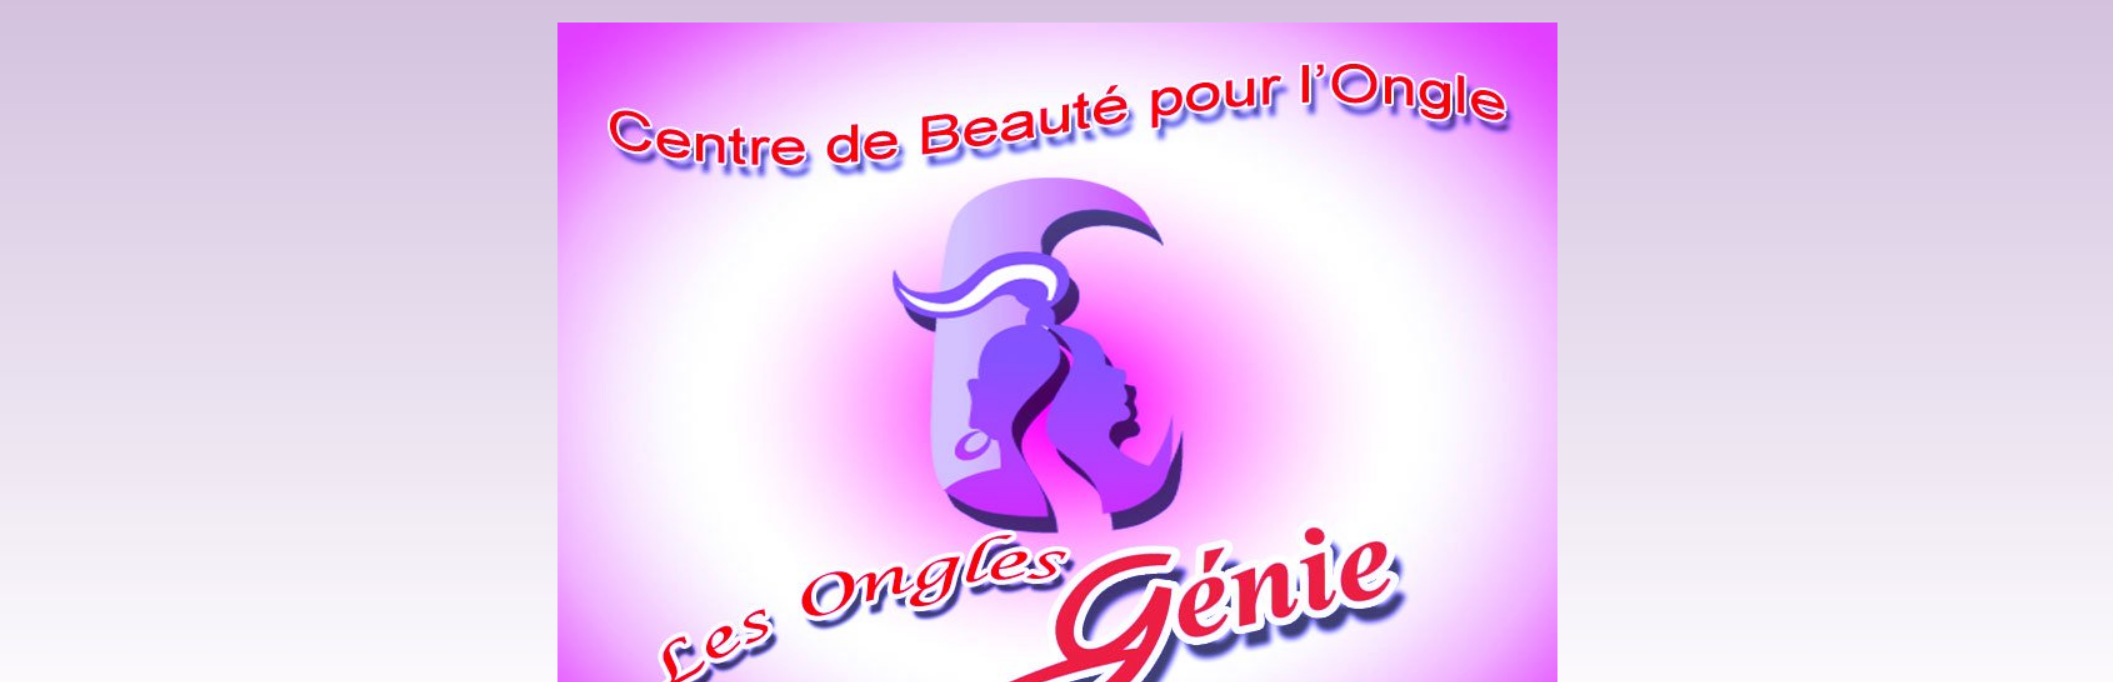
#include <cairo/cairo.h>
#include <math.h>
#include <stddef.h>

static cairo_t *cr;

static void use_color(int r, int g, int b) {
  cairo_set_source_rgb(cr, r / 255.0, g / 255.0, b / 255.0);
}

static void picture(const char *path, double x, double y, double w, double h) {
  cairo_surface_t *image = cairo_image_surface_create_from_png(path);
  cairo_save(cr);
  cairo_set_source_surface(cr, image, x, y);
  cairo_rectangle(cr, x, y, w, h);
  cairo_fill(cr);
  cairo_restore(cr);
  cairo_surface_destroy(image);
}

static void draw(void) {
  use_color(255, 255, 255);
  cairo_paint(cr);
  picture("img_01.png", 0, 0, 2113, 682);
  picture("img_02.png", 557, 22, 1001, 660);
}

int main(void) {
  cairo_surface_t *surface = cairo_image_surface_create(CAIRO_FORMAT_RGB24, 2113, 682);
  cr = cairo_create(surface);
  cairo_font_options_t *options = cairo_font_options_create();
  cairo_font_options_set_hint_metrics(options, CAIRO_HINT_METRICS_OFF);
  cairo_font_options_set_hint_style(options, CAIRO_HINT_STYLE_NONE);
  cairo_set_font_options(cr, options);
  cairo_set_miter_limit(cr, 4);
  draw();
  cairo_surface_write_to_png(surface, "out.png");
  cairo_font_options_destroy(options);
  cairo_destroy(cr);
  cairo_surface_destroy(surface);
  return 0;
}
